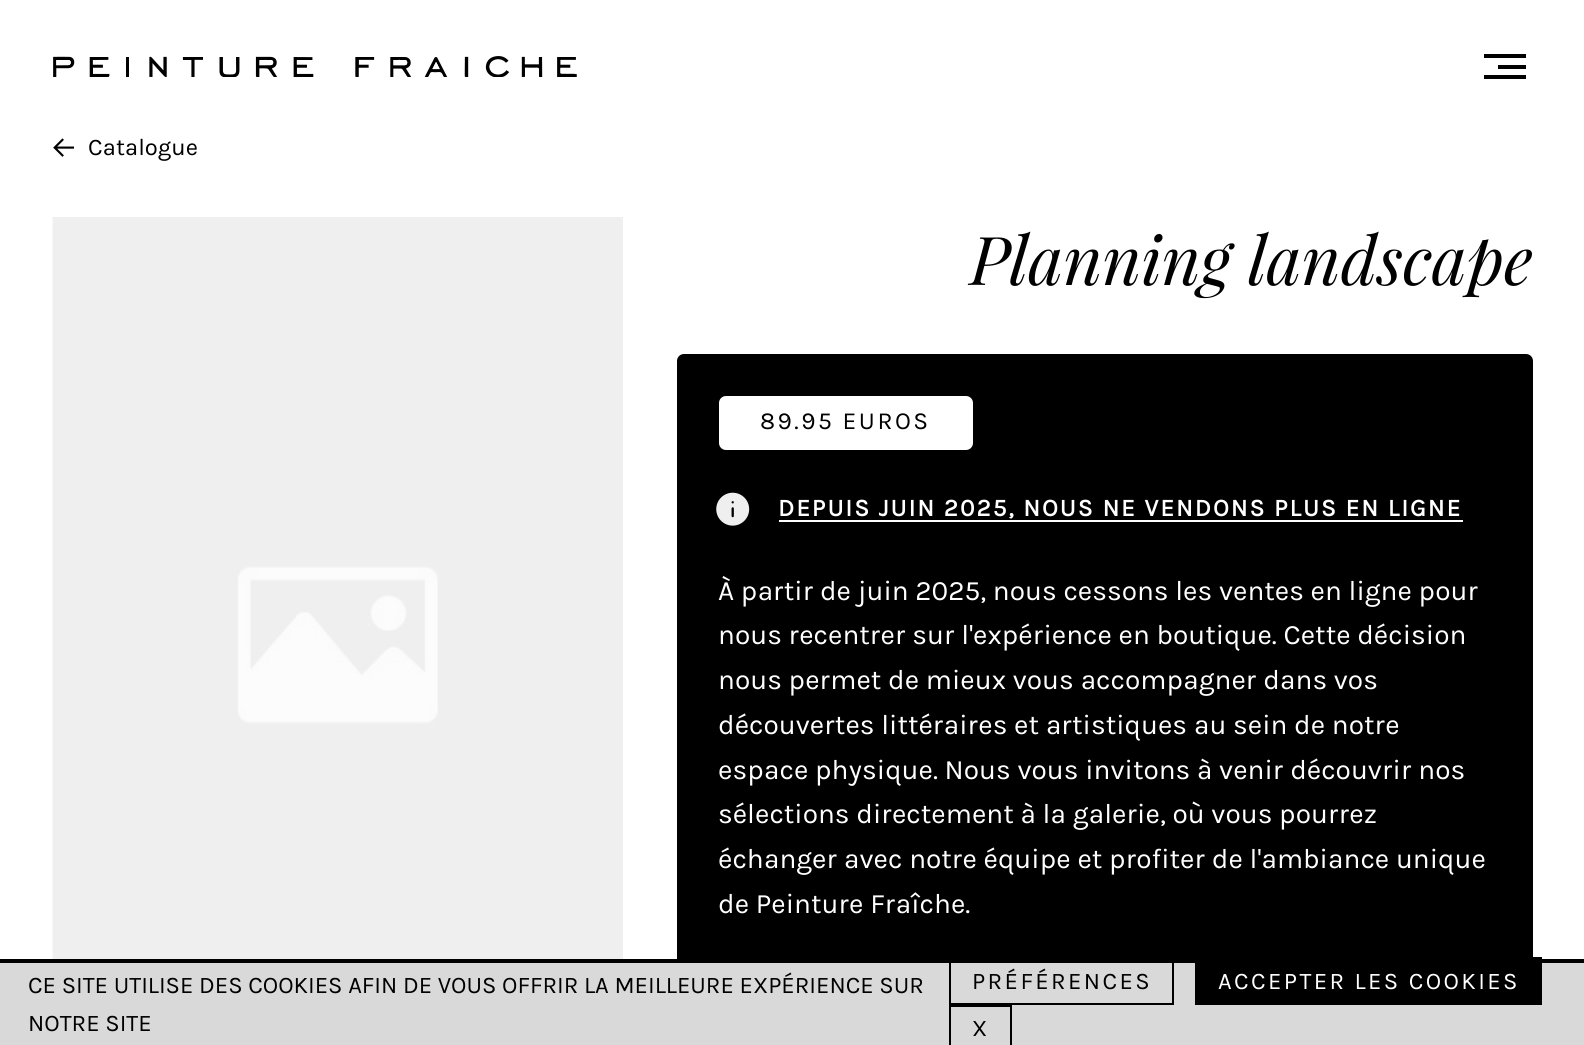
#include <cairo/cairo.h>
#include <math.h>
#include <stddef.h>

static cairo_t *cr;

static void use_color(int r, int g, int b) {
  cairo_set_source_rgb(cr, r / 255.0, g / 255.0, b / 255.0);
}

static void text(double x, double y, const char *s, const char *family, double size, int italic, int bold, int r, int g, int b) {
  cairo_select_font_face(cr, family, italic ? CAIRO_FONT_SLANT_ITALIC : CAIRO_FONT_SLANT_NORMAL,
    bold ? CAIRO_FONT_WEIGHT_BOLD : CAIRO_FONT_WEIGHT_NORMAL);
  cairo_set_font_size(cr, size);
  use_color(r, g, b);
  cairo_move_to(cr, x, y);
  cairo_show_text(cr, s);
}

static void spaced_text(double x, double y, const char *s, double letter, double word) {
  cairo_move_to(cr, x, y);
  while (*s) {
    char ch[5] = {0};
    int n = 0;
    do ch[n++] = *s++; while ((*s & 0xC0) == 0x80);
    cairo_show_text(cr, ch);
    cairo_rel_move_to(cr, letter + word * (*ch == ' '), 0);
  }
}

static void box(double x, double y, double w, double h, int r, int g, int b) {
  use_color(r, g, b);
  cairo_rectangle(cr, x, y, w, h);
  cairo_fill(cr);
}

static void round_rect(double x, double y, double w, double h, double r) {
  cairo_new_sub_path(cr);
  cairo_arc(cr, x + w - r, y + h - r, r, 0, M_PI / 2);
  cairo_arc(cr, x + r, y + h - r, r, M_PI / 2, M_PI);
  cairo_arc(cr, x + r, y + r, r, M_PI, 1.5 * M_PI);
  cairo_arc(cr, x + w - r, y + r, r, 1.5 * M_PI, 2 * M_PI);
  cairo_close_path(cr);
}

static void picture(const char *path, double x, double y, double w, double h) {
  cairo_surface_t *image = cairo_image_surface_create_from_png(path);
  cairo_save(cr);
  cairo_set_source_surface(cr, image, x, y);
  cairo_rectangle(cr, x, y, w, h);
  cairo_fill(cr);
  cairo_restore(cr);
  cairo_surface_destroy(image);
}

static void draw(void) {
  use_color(255, 255, 255);
  cairo_paint(cr);
  picture("img_01.png", 53, 56, 524, 21);
  box(1484, 54, 42, 4, 0, 0, 0);
  box(1498, 65, 28, 4, 0, 0, 0);
  box(1484, 75, 42, 4, 0, 0, 0);
  picture("img_02.png", 53, 138, 21, 19);
  box(53, 217, 570, 742, 248, 248, 248);
  picture("img_03.png", 52, 217, 571, 742);
  use_color(0, 0, 0);
  round_rect(677, 354, 856, 614, 7);
  cairo_fill(cr);
  use_color(255, 255, 255);
  round_rect(719, 396, 254, 54, 7);
  cairo_fill(cr);
  picture("img_04.png", 716, 492, 34, 34);
  box(779, 520, 684, 2, 255, 255, 255);
  box(0, 963, 1584, 82, 217, 217, 217);
  box(0, 959, 1584, 4, 0, 0, 0);
  cairo_rectangle(cr, 950, 958, 223, 46);
  cairo_stroke(cr);
  box(1195, 957, 347, 48, 0, 0, 0);
  cairo_rectangle(cr, 950, 1006, 61, 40);
  cairo_stroke(cr);
  text(88, 155, "Catalogue", "Karla", 23.8, 0, 0, 0, 0, 0);
  text(970, 285, "Planning landscape", "Playfair Display", 67.25, 1, 0, 0, 0, 0);
  cairo_select_font_face(cr, "Karla", CAIRO_FONT_SLANT_NORMAL, CAIRO_FONT_WEIGHT_NORMAL);
  cairo_set_font_size(cr, 24.5);
  spaced_text(760, 429, "89.95 EUROS", 2.5, 0);
  cairo_select_font_face(cr, "Karla", CAIRO_FONT_SLANT_NORMAL, CAIRO_FONT_WEIGHT_BOLD);
  use_color(255, 255, 255);
  spaced_text(778, 516, "DEPUIS JUIN 2025, NOUS NE VENDONS PLUS EN LIGNE", 1.95, 0);
  text(718, 600, "À partir de juin 2025, nous cessons les ventes en ligne pour", "Karla", 28, 0, 0, 255, 255, 255);
  text(718, 644, "nous recentrer sur l'expérience en boutique. Cette décision", "Karla", 28, 0, 0, 255, 255, 255);
  text(718, 689, "nous permet de mieux vous accompagner dans vos", "Karla", 28, 0, 0, 255, 255, 255);
  text(718, 734, "découvertes littéraires et artistiques au sein de notre", "Karla", 28, 0, 0, 255, 255, 255);
  text(718, 779, "espace physique. Nous vous invitons à venir découvrir nos", "Karla", 28, 0, 0, 255, 255, 255);
  text(718, 823, "sélections directement à la galerie, où vous pourrez", "Karla", 28, 0, 0, 255, 255, 255);
  text(718, 868, "échanger avec notre équipe et profiter de l'ambiance unique", "Karla", 28, 0, 0, 255, 255, 255);
  text(718, 913, "de Peinture Fraîche.", "Karla", 28, 0, 0, 255, 255, 255);
  text(28, 993, "CE SITE UTILISE DES COOKIES AFIN DE VOUS OFFRIR LA MEILLEURE EXPÉRIENCE SUR", "Karla", 23.8, 0, 0, 0, 0, 0);
  text(28, 1031, "NOTRE SITE", "Karla", 23.8, 0, 0, 0, 0, 0);
  spaced_text(972, 989, "PRÉFÉRENCES", 2.4, 0);
  use_color(255, 255, 255);
  spaced_text(1218, 989, "ACCEPTER LES COOKIES", 2.4, 0);
  use_color(0, 0, 0);
  spaced_text(972, 1036, "X", 2.4, 0);
}

int main(void) {
  cairo_surface_t *surface = cairo_image_surface_create(CAIRO_FORMAT_RGB24, 1584, 1045);
  cr = cairo_create(surface);
  cairo_font_options_t *options = cairo_font_options_create();
  cairo_font_options_set_hint_metrics(options, CAIRO_HINT_METRICS_OFF);
  cairo_font_options_set_hint_style(options, CAIRO_HINT_STYLE_NONE);
  cairo_set_font_options(cr, options);
  cairo_set_miter_limit(cr, 4);
  draw();
  cairo_surface_write_to_png(surface, "out.png");
  cairo_font_options_destroy(options);
  cairo_destroy(cr);
  cairo_surface_destroy(surface);
  return 0;
}
